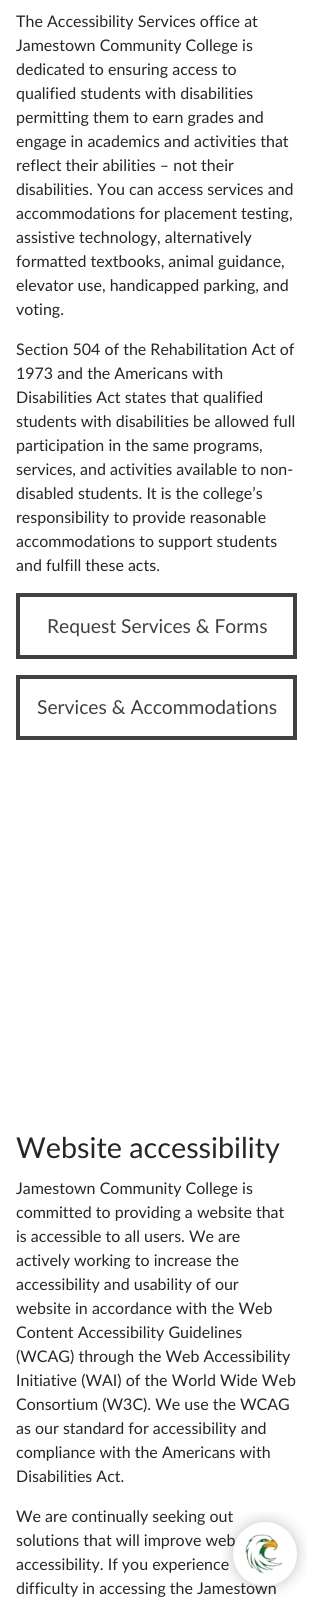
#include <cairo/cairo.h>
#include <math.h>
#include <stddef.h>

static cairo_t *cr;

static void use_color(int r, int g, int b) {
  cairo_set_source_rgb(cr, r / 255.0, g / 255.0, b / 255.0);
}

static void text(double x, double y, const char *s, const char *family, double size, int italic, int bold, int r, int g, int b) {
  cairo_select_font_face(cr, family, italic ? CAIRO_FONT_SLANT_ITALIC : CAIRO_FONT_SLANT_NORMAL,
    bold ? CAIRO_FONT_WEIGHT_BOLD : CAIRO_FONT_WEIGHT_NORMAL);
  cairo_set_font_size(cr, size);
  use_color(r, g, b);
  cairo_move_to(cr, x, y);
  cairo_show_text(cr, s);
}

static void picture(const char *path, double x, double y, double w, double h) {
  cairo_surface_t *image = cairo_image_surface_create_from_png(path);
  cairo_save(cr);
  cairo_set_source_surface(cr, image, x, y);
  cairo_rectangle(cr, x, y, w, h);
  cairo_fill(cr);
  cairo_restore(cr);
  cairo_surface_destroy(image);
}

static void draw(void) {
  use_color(255, 255, 255);
  cairo_paint(cr);
  cairo_rectangle(cr, 18, 595, 277, 62);
  use_color(65, 64, 66);
  cairo_set_line_width(cr, 4);
  cairo_stroke(cr);
  cairo_rectangle(cr, 18, 677, 277, 61);
  cairo_stroke(cr);
  text(16, 27, "The Accessibility Services office at", "Lato", 16, 0, 0, 38, 38, 38);
  text(16, 51, "Jamestown Community College is", "Lato", 16, 0, 0, 38, 38, 38);
  text(16, 75, "dedicated to ensuring access to", "Lato", 16, 0, 0, 38, 38, 38);
  text(16, 99, "qualified students with disabilities", "Lato", 16, 0, 0, 38, 38, 38);
  text(16, 123, "permitting them to earn grades and", "Lato", 16, 0, 0, 38, 38, 38);
  text(16, 147, "engage in academics and activities that", "Lato", 16, 0, 0, 38, 38, 38);
  text(16, 171, "reflect their abilities – not their", "Lato", 16, 0, 0, 38, 38, 38);
  text(16, 195, "disabilities. You can access services and", "Lato", 16, 0, 0, 38, 38, 38);
  text(16, 219, "accommodations for placement testing,", "Lato", 16, 0, 0, 38, 38, 38);
  text(16, 243, "assistive technology, alternatively", "Lato", 16, 0, 0, 38, 38, 38);
  text(16, 267, "formatted textbooks, animal guidance,", "Lato", 16, 0, 0, 38, 38, 38);
  text(16, 291, "elevator use, handicapped parking, and", "Lato", 16, 0, 0, 38, 38, 38);
  text(16, 315, "voting.", "Lato", 16, 0, 0, 38, 38, 38);
  text(16, 355, "Section 504 of the Rehabilitation Act of", "Lato", 16, 0, 0, 38, 38, 38);
  text(16, 379, "1973 and the Americans with", "Lato", 16, 0, 0, 38, 38, 38);
  text(16, 403, "Disabilities Act states that qualified", "Lato", 16, 0, 0, 38, 38, 38);
  text(16, 427, "students with disabilities be allowed full", "Lato", 16, 0, 0, 38, 38, 38);
  text(16, 451, "participation in the same programs,", "Lato", 16, 0, 0, 38, 38, 38);
  text(16, 475, "services, and activities available to non-", "Lato", 16, 0, 0, 38, 38, 38);
  text(16, 499, "disabled students. It is the college’s", "Lato", 16, 0, 0, 38, 38, 38);
  text(16, 523, "responsibility to provide reasonable", "Lato", 16, 0, 0, 38, 38, 38);
  text(16, 547, "accommodations to support students", "Lato", 16, 0, 0, 38, 38, 38);
  text(16, 571, "and fulfill these acts.", "Lato", 16, 0, 0, 38, 38, 38);
  text(47, 633, "Request Services & Forms", "Lato", 19.25, 0, 0, 65, 64, 66);
  text(37, 714, "Services & Accommodations", "Lato", 19.25, 0, 0, 65, 64, 66);
  text(16, 1158, "Website accessibility", "Lato", 28.75, 0, 0, 38, 38, 38);
  text(16, 1194, "Jamestown Community College is", "Lato", 16, 0, 0, 38, 38, 38);
  text(16, 1218, "committed to providing a website that", "Lato", 16, 0, 0, 38, 38, 38);
  text(16, 1242, "is accessible to all users. We are", "Lato", 16, 0, 0, 38, 38, 38);
  text(16, 1266, "actively working to increase the", "Lato", 16, 0, 0, 38, 38, 38);
  text(16, 1290, "accessibility and usability of our", "Lato", 16, 0, 0, 38, 38, 38);
  text(16, 1314, "website in accordance with the Web", "Lato", 16, 0, 0, 38, 38, 38);
  text(16, 1338, "Content Accessibility Guidelines", "Lato", 16, 0, 0, 38, 38, 38);
  text(16, 1362, "(WCAG) through the Web Accessibility", "Lato", 16, 0, 0, 38, 38, 38);
  text(16, 1386, "Initiative (WAI) of the World Wide Web", "Lato", 16, 0, 0, 38, 38, 38);
  text(16, 1410, "Consortium (W3C). We use the WCAG", "Lato", 16, 0, 0, 38, 38, 38);
  text(16, 1434, "as our standard for accessibility and", "Lato", 16, 0, 0, 38, 38, 38);
  text(16, 1458, "compliance with the Americans with", "Lato", 16, 0, 0, 38, 38, 38);
  text(16, 1482, "Disabilities Act.", "Lato", 16, 0, 0, 38, 38, 38);
  text(16, 1522, "We are continually seeking out", "Lato", 16, 0, 0, 38, 38, 38);
  text(16, 1546, "solutions that will improve web", "Lato", 16, 0, 0, 38, 38, 38);
  text(16, 1570, "accessibility. If you experience", "Lato", 16, 0, 0, 38, 38, 38);
  text(16, 1594, "difficulty in accessing the Jamestown", "Lato", 16, 0, 0, 38, 38, 38);
  picture("img_01.png", 223, 1512, 84, 84);
}

int main(void) {
  cairo_surface_t *surface = cairo_image_surface_create(CAIRO_FORMAT_RGB24, 313, 1602);
  cr = cairo_create(surface);
  cairo_font_options_t *options = cairo_font_options_create();
  cairo_font_options_set_hint_metrics(options, CAIRO_HINT_METRICS_OFF);
  cairo_font_options_set_hint_style(options, CAIRO_HINT_STYLE_NONE);
  cairo_set_font_options(cr, options);
  cairo_set_miter_limit(cr, 4);
  draw();
  cairo_surface_write_to_png(surface, "out.png");
  cairo_font_options_destroy(options);
  cairo_destroy(cr);
  cairo_surface_destroy(surface);
  return 0;
}
